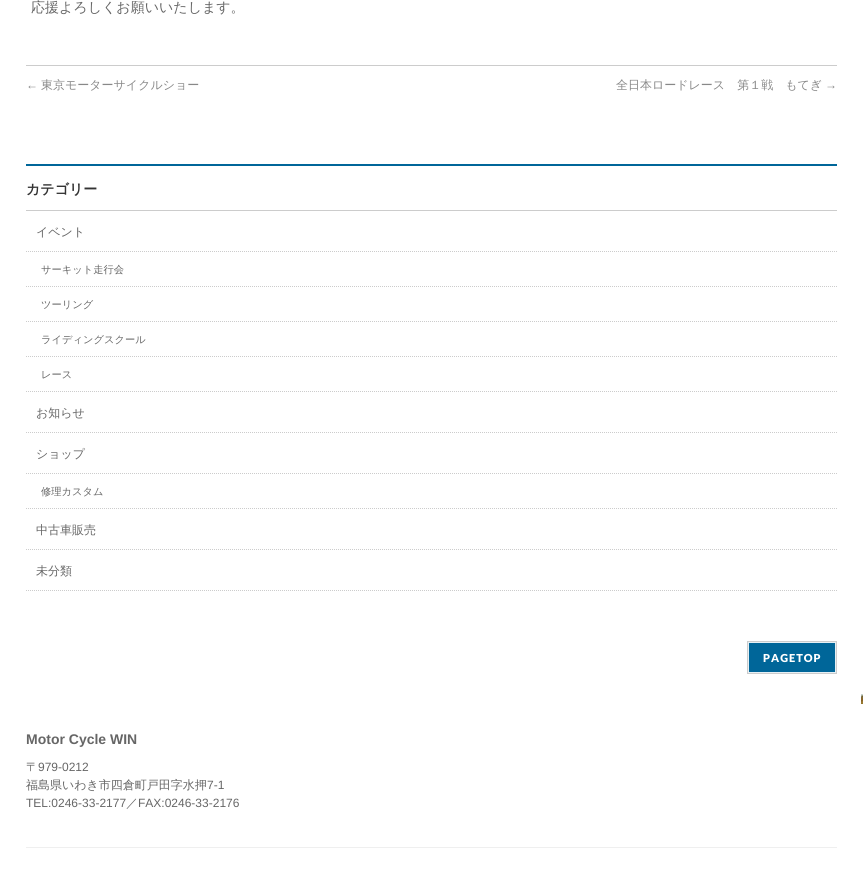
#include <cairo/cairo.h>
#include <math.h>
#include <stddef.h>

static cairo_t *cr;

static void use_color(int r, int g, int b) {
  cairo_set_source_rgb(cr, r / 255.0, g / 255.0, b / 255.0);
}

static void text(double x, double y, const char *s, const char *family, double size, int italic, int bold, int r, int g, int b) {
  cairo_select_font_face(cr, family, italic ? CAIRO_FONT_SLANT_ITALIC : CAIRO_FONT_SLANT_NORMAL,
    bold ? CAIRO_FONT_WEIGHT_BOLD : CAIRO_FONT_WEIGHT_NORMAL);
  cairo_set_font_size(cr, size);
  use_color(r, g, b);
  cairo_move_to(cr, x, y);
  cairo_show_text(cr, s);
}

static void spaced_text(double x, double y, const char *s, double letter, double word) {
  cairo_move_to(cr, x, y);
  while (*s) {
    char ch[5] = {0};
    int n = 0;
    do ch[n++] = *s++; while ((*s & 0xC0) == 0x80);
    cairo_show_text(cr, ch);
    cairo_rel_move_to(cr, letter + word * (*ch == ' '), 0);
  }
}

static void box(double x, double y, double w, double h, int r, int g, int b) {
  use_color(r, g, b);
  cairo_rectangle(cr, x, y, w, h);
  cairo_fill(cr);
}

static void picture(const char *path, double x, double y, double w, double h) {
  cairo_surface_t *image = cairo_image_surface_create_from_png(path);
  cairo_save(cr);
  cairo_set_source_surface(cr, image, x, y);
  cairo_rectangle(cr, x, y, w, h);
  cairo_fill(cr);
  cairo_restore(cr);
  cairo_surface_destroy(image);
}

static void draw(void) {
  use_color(255, 255, 255);
  cairo_paint(cr);
  picture("img_01.png", 861, 694, 2, 10);
  box(26, 65, 811, 1, 204, 204, 204);
  box(26, 164, 811, 2, 0, 102, 153);
  box(26, 210, 811, 1, 204, 204, 204);
  cairo_new_path(cr);
  cairo_move_to(cr, 26, 391.5);
  cairo_line_to(cr, 837, 391.5);
  cairo_set_line_width(cr, 1);
  cairo_set_dash(cr, (double[]){1, 1}, 2, 0);
  cairo_stroke(cr);
  cairo_new_path(cr);
  cairo_move_to(cr, 26, 251.5);
  cairo_line_to(cr, 837, 251.5);
  cairo_stroke(cr);
  cairo_new_path(cr);
  cairo_move_to(cr, 26, 286.5);
  cairo_line_to(cr, 837, 286.5);
  cairo_stroke(cr);
  cairo_new_path(cr);
  cairo_move_to(cr, 26, 321.5);
  cairo_line_to(cr, 837, 321.5);
  cairo_stroke(cr);
  cairo_new_path(cr);
  cairo_move_to(cr, 26, 356.5);
  cairo_line_to(cr, 837, 356.5);
  cairo_stroke(cr);
  cairo_new_path(cr);
  cairo_move_to(cr, 26, 432.5);
  cairo_line_to(cr, 837, 432.5);
  cairo_stroke(cr);
  cairo_new_path(cr);
  cairo_move_to(cr, 26, 508.5);
  cairo_line_to(cr, 837, 508.5);
  cairo_stroke(cr);
  cairo_new_path(cr);
  cairo_move_to(cr, 26, 473.5);
  cairo_line_to(cr, 837, 473.5);
  cairo_stroke(cr);
  cairo_new_path(cr);
  cairo_move_to(cr, 26, 549.5);
  cairo_line_to(cr, 837, 549.5);
  cairo_stroke(cr);
  cairo_new_path(cr);
  cairo_move_to(cr, 26, 590.5);
  cairo_line_to(cr, 837, 590.5);
  cairo_stroke(cr);
  use_color(0, 102, 153);
  cairo_rectangle(cr, 748.5, 642.5, 87, 30);
  cairo_fill_preserve(cr);
  use_color(230, 240, 245);
  cairo_set_dash(cr, NULL, 0, 0);
  cairo_stroke(cr);
  cairo_rectangle(cr, 747.5, 641.5, 89, 32);
  use_color(204, 204, 204);
  cairo_stroke(cr);
  box(26, 847, 811, 1, 239, 239, 239);
  text(31, 12, "応援よろしくお願いいたします。", "WenQuanYi Zen Hei Medium", 14, 0, 0, 102, 102, 102);
  text(26, 89, "←", "Liberation Sans", 12, 0, 0, 136, 136, 136);
  text(41, 89, "東京モーターサイクルショー", "WenQuanYi Zen Hei Medium", 12, 0, 0, 136, 136, 136);
  text(616, 89, "全日本ロードレース　第１戦　もてぎ", "WenQuanYi Zen Hei Medium", 12, 0, 0, 136, 136, 136);
  text(825, 89, "→", "Liberation Sans", 12, 0, 0, 136, 136, 136);
  text(26, 194, "カテゴリー", "WenQuanYi Zen Hei", 14, 0, 1, 51, 51, 51);
  text(36, 236, "イベント", "WenQuanYi Zen Hei Medium", 12, 0, 0, 102, 102, 102);
  text(41, 273, "サーキット走行会", "WenQuanYi Zen Hei Medium", 10.25, 0, 0, 102, 102, 102);
  text(41, 308, "ツーリング", "WenQuanYi Zen Hei Medium", 10.25, 0, 0, 102, 102, 102);
  text(41, 343, "ライディングスクール", "WenQuanYi Zen Hei Medium", 10.25, 0, 0, 102, 102, 102);
  text(41, 378, "レース", "WenQuanYi Zen Hei Medium", 10.25, 0, 0, 102, 102, 102);
  text(36, 417, "お知らせ", "WenQuanYi Zen Hei Medium", 12, 0, 0, 102, 102, 102);
  text(36, 458, "ショップ", "WenQuanYi Zen Hei Medium", 12, 0, 0, 102, 102, 102);
  text(41, 495, "修理カスタム", "WenQuanYi Zen Hei Medium", 10.25, 0, 0, 102, 102, 102);
  text(36, 534, "中古車販売", "WenQuanYi Zen Hei Medium", 12, 0, 0, 102, 102, 102);
  text(36, 575, "未分類", "WenQuanYi Zen Hei Medium", 12, 0, 0, 102, 102, 102);
  cairo_select_font_face(cr, "Lato Black", CAIRO_FONT_SLANT_NORMAL, CAIRO_FONT_WEIGHT_NORMAL);
  cairo_set_font_size(cr, 11);
  use_color(255, 255, 255);
  spaced_text(763, 662, "PAGETOP", 1, 0);
  text(26, 744, "Motor Cycle WIN", "Liberation Sans", 14, 0, 1, 102, 102, 102);
  text(26, 771, "〒", "WenQuanYi Zen Hei Medium", 12, 0, 0, 102, 102, 102);
  text(38, 771, "979-0212", "Liberation Sans", 12, 0, 0, 102, 102, 102);
  text(26, 789, "福島県いわき市四倉町戸田字水押", "WenQuanYi Zen Hei Medium", 12, 0, 0, 102, 102, 102);
  text(207, 789, "7-1", "Liberation Sans", 12, 0, 0, 102, 102, 102);
  text(26, 807, "TEL:0246-33-2177", "Liberation Sans", 12, 0, 0, 102, 102, 102);
  text(126, 807, "／", "WenQuanYi Zen Hei Medium", 12, 0, 0, 102, 102, 102);
  text(138, 807, "FAX:0246-33-2176", "Liberation Sans", 12, 0, 0, 102, 102, 102);
}

int main(void) {
  cairo_surface_t *surface = cairo_image_surface_create(CAIRO_FORMAT_RGB24, 863, 871);
  cr = cairo_create(surface);
  cairo_font_options_t *options = cairo_font_options_create();
  cairo_font_options_set_hint_metrics(options, CAIRO_HINT_METRICS_OFF);
  cairo_font_options_set_hint_style(options, CAIRO_HINT_STYLE_NONE);
  cairo_set_font_options(cr, options);
  cairo_set_miter_limit(cr, 4);
  draw();
  cairo_surface_write_to_png(surface, "out.png");
  cairo_font_options_destroy(options);
  cairo_destroy(cr);
  cairo_surface_destroy(surface);
  return 0;
}
